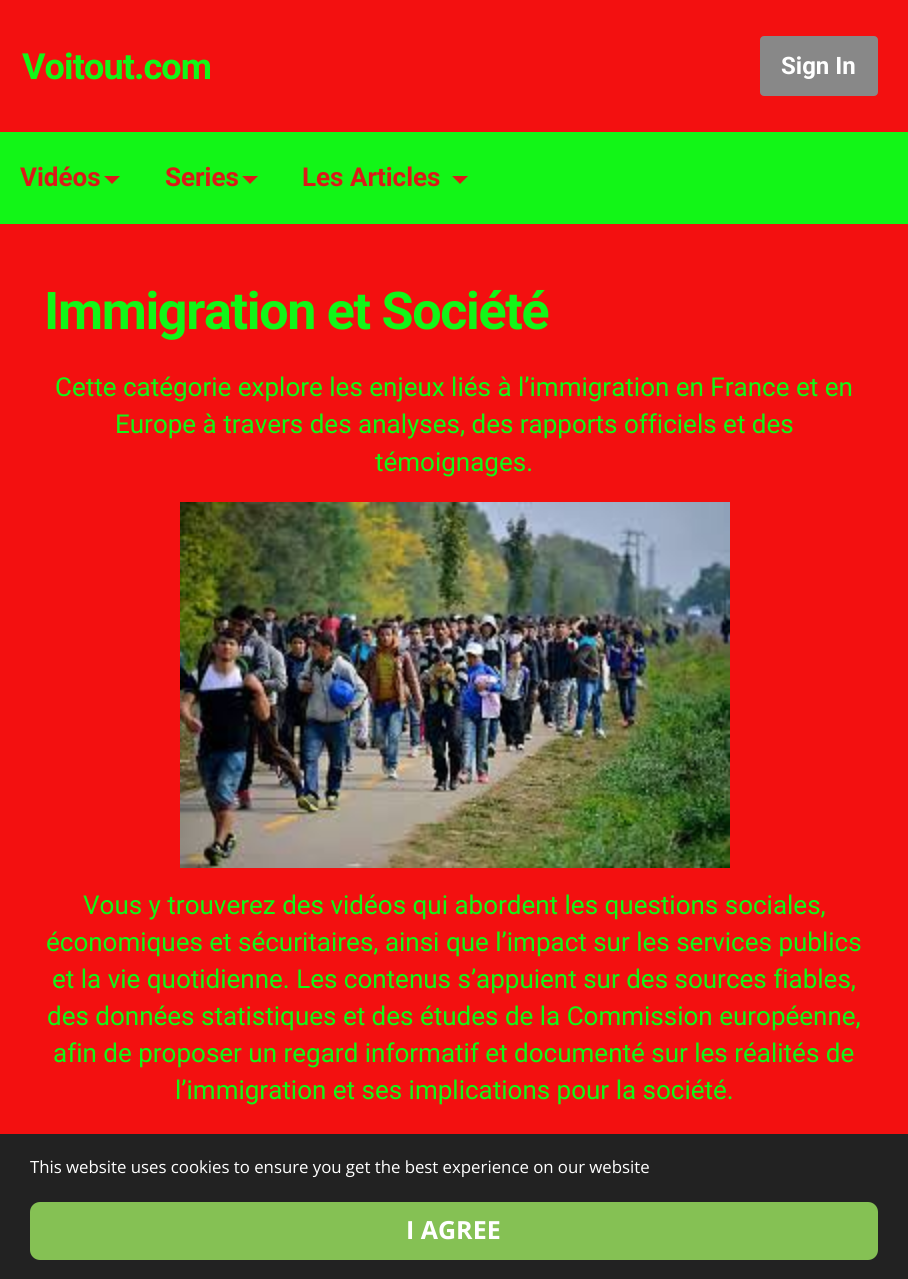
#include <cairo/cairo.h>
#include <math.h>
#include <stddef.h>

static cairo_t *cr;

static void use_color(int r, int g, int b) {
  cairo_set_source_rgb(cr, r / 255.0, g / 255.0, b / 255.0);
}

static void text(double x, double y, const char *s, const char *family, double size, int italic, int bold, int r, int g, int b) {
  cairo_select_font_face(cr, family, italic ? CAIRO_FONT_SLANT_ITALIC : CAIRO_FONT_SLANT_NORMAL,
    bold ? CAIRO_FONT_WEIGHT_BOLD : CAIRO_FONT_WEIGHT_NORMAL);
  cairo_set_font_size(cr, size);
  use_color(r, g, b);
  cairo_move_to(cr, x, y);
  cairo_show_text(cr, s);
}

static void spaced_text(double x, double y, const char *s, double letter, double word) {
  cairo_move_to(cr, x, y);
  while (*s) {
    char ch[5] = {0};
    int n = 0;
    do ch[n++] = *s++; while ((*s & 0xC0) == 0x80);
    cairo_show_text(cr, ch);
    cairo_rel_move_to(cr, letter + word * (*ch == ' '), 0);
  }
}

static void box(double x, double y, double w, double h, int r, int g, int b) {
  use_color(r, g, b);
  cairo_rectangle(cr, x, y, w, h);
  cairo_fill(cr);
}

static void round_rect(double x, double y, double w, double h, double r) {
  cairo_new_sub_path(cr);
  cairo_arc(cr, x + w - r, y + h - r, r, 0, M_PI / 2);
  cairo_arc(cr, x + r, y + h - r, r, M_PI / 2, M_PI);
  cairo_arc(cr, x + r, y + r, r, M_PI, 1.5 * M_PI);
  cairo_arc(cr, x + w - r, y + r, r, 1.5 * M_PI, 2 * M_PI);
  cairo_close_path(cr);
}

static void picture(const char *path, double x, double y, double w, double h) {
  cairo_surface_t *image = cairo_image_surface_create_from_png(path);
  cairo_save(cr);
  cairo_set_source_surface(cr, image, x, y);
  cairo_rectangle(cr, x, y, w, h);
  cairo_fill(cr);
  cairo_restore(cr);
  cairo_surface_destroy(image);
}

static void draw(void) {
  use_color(243, 16, 16);
  cairo_paint(cr);
  use_color(136, 136, 136);
  round_rect(761, 37, 116, 58, 3);
  cairo_fill_preserve(cr);
  cairo_stroke(cr);
  box(0, 132, 908, 92, 18, 246, 23);
  use_color(219, 25, 25);
  cairo_new_path(cr);
  cairo_move_to(cr, 104, 176);
  cairo_line_to(cr, 120, 176);
  cairo_line_to(cr, 112, 184);
  cairo_close_path(cr);
  cairo_fill(cr);
  cairo_new_path(cr);
  cairo_move_to(cr, 242, 176);
  cairo_line_to(cr, 258, 176);
  cairo_line_to(cr, 250, 184);
  cairo_close_path(cr);
  cairo_fill(cr);
  cairo_new_path(cr);
  cairo_move_to(cr, 452, 176);
  cairo_line_to(cr, 468, 176);
  cairo_line_to(cr, 460, 184);
  cairo_close_path(cr);
  cairo_fill(cr);
  picture("img_01.png", 180, 502, 550, 366);
  box(0, 1134, 908, 145, 34, 34, 34);
  use_color(133, 193, 84);
  round_rect(30, 1202, 848, 58, 10);
  cairo_fill(cr);
  cairo_select_font_face(cr, "Roboto", CAIRO_FONT_SLANT_NORMAL, CAIRO_FONT_WEIGHT_BOLD);
  cairo_set_font_size(cr, 36);
  use_color(18, 246, 23);
  spaced_text(22, 79, "Voitout.com", -0.9, 0);
  text(781, 74, "Sign In", "Roboto", 24, 0, 1, 255, 255, 255);
  text(20, 186, "Vidéos", "Roboto", 26, 0, 1, 219, 25, 25);
  text(165, 186, "Series", "Roboto", 26, 0, 1, 219, 25, 25);
  text(302, 186, "Les Articles", "Roboto", 26, 0, 1, 219, 25, 25);
  cairo_set_font_size(cr, 52);
  use_color(18, 246, 23);
  spaced_text(44, 329, "Immigration et Société", -1.3, 0);
  text(55, 396, "Cette catégorie explore les enjeux liés à l’immigration en France et en", "Roboto", 26, 0, 0, 18, 246, 23);
  text(115, 433, "Europe à travers des analyses, des rapports officiels et des", "Roboto", 26, 0, 0, 18, 246, 23);
  text(375, 471, "témoignages.", "Roboto", 26, 0, 0, 18, 246, 23);
  text(83, 914, "Vous y trouverez des vidéos qui abordent les questions sociales,", "Roboto", 26, 0, 0, 18, 246, 23);
  text(46, 951, "économiques et sécuritaires, ainsi que l’impact sur les services publics", "Roboto", 26, 0, 0, 18, 246, 23);
  text(52, 988, "et la vie quotidienne. Les contenus s’appuient sur des sources fiables,", "Roboto", 26, 0, 0, 18, 246, 23);
  text(47, 1025, "des données statistiques et des études de la Commission européenne,", "Roboto", 26, 0, 0, 18, 246, 23);
  text(53, 1062, "afin de proposer un regard informatif et documenté sur les réalités de", "Roboto", 26, 0, 0, 18, 246, 23);
  text(175, 1099, "l’immigration et ses implications pour la société.", "Roboto", 26, 0, 0, 18, 246, 23);
  cairo_select_font_face(cr, "Open Sans", CAIRO_FONT_SLANT_NORMAL, CAIRO_FONT_WEIGHT_NORMAL);
  cairo_set_font_size(cr, 16.8);
  use_color(255, 255, 255);
  spaced_text(30, 1173, "This website uses cookies to ensure you get the best experience on our website", 0, -0.1);
  text(406, 1239, "I AGREE", "Open Sans", 25, 0, 1, 255, 255, 255);
}

int main(void) {
  cairo_surface_t *surface = cairo_image_surface_create(CAIRO_FORMAT_RGB24, 908, 1279);
  cr = cairo_create(surface);
  cairo_font_options_t *options = cairo_font_options_create();
  cairo_font_options_set_hint_metrics(options, CAIRO_HINT_METRICS_OFF);
  cairo_font_options_set_hint_style(options, CAIRO_HINT_STYLE_NONE);
  cairo_set_font_options(cr, options);
  cairo_set_miter_limit(cr, 4);
  draw();
  cairo_surface_write_to_png(surface, "out.png");
  cairo_font_options_destroy(options);
  cairo_destroy(cr);
  cairo_surface_destroy(surface);
  return 0;
}
